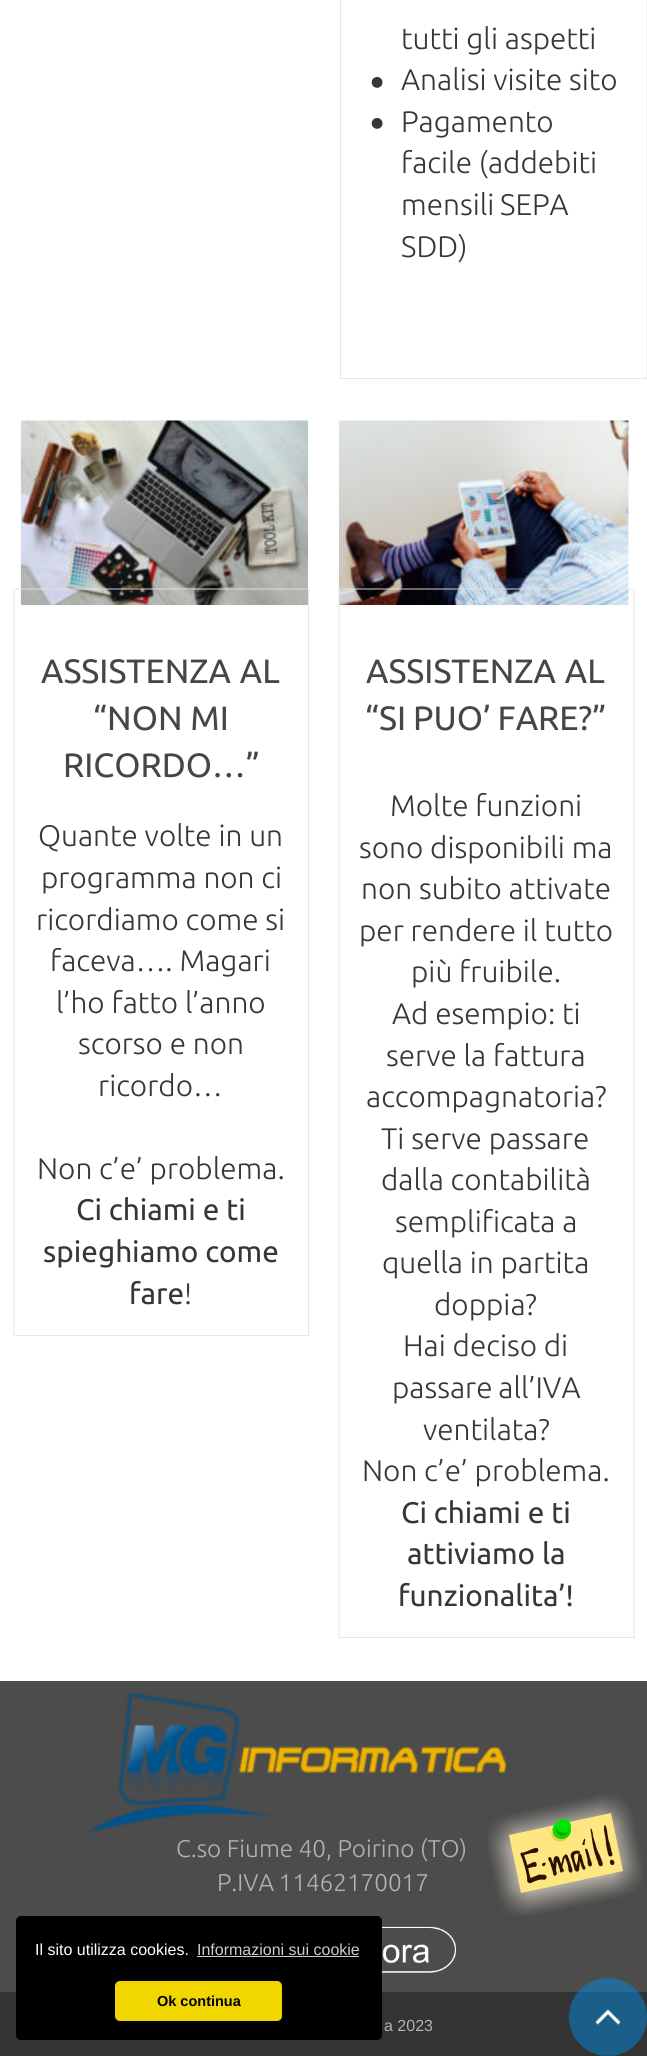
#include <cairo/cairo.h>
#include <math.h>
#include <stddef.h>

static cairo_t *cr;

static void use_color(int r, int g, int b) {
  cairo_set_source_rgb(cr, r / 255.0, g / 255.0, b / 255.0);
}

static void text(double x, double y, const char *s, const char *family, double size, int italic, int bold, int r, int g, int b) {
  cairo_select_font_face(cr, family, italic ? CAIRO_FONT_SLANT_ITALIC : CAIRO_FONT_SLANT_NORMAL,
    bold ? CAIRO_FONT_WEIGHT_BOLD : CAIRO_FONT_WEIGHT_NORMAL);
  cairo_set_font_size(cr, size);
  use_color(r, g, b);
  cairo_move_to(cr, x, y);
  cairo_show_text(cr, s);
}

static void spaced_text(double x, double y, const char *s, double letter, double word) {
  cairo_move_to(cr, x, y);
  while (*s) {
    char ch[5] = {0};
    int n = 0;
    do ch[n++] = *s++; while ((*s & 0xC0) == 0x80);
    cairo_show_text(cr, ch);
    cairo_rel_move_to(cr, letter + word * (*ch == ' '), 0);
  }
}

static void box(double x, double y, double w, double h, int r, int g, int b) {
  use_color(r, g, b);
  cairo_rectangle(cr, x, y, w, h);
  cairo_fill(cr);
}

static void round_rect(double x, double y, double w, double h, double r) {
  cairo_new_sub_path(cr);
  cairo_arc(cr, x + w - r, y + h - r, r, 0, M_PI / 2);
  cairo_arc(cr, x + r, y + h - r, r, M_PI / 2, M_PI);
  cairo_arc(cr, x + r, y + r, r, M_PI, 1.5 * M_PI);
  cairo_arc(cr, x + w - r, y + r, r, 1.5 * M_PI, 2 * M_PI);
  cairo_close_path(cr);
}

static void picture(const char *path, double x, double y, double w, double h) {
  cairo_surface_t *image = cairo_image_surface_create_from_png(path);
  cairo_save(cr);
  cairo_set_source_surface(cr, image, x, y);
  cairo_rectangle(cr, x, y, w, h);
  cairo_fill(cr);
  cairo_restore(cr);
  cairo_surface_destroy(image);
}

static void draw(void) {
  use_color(255, 255, 255);
  cairo_paint(cr);
  cairo_new_path(cr);
  cairo_move_to(cr, 340.5, -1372);
  cairo_line_to(cr, 340.5, 378.5);
  cairo_line_to(cr, 647, 378.5);
  cairo_line_to(cr, 647, -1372);
  cairo_close_path(cr);
  use_color(229, 229, 229);
  cairo_set_line_width(cr, 0.9);
  cairo_stroke(cr);
  picture("img_01.png", 20, 420, 288, 185);
  picture("img_02.png", 339, 420, 290, 185);
  cairo_new_path(cr);
  cairo_move_to(cr, 14, 589);
  cairo_line_to(cr, 14, 1335.5);
  cairo_line_to(cr, 308.5, 1335.5);
  cairo_line_to(cr, 308.5, 589);
  cairo_close_path(cr);
  cairo_stroke(cr);
  cairo_new_path(cr);
  cairo_move_to(cr, 339, 589);
  cairo_line_to(cr, 339, 1637.5);
  cairo_line_to(cr, 634, 1637.5);
  cairo_line_to(cr, 634, 589);
  cairo_close_path(cr);
  cairo_stroke(cr);
  box(0, 1681, 647, 311, 76, 76, 76);
  picture("img_03.png", 89, 1692, 417, 141);
  picture("img_04.png", 487, 1794, 156, 122);
  use_color(255, 230, 128);
  cairo_set_fill_rule(cr, CAIRO_FILL_RULE_EVEN_ODD);
  cairo_new_path(cr);
  cairo_move_to(cr, 509, 1835);
  cairo_line_to(cr, 611, 1813);
  cairo_line_to(cr, 623, 1871);
  cairo_line_to(cr, 521, 1893);
  cairo_close_path(cr);
  cairo_fill(cr);
  use_color(236, 202, 62);
  cairo_new_path(cr);
  cairo_move_to(cr, 569, 1831.5);
  cairo_curve_to(cr, 571, 1842.5, 553.5, 1845.5, 551.5, 1834.5);
  cairo_curve_to(cr, 549.5, 1823.5, 567, 1820.5, 569, 1831.5);
  cairo_close_path(cr);
  cairo_fill(cr);
  use_color(0, 191, 0);
  cairo_new_path(cr);
  cairo_move_to(cr, 570.5, 1828.5);
  cairo_curve_to(cr, 572.5, 1839.5, 555, 1843, 553, 1832);
  cairo_curve_to(cr, 551, 1821, 568.5, 1817.5, 570.5, 1828.5);
  cairo_close_path(cr);
  cairo_fill(cr);
  picture("img_09.png", 560, 1829, 11, 10);
  picture("img_05.png", 552, 1821, 19, 17);
  picture("img_08.png", 556, 1827, 13, 9);
  picture("img_06.png", 556, 1821, 15, 13);
  use_color(0, 230, 0);
  cairo_new_path(cr);
  cairo_move_to(cr, 570.5, 1824.5);
  cairo_curve_to(cr, 572, 1833, 558, 1835.5, 556.5, 1827);
  cairo_curve_to(cr, 555, 1818, 569, 1815.5, 570.5, 1824.5);
  cairo_close_path(cr);
  cairo_fill(cr);
  picture("img_07.png", 520, 1825, 95, 59);
  picture("img_10.png", 382, 1926, 74, 47);
  box(0, 1992, 647, 64, 51, 51, 51);
  picture("img_11.png", 568, 1977, 79, 79);
  use_color(0, 0, 0);
  round_rect(16, 1916, 366, 124, 5);
  cairo_fill(cr);
  box(197, 1956, 162, 1, 204, 204, 204);
  use_color(241, 214, 0);
  round_rect(115, 1981, 167, 40, 5);
  cairo_fill(cr);
  text(401, 49, "tutti gli aspetti", "Ubuntu Light", 29.75, 0, 0, 55, 55, 55);
  text(369, 92, "•", "Verdana", 29.75, 0, 0, 55, 55, 55);
  text(401, 90, "Analisi visite sito", "Ubuntu Light", 29.75, 0, 0, 55, 55, 55);
  text(369, 133, "•", "Verdana", 29.75, 0, 0, 55, 55, 55);
  text(401, 132, "Pagamento", "Ubuntu Light", 29.75, 0, 0, 55, 55, 55);
  text(401, 173, "facile (addebiti", "Ubuntu Light", 29.75, 0, 0, 55, 55, 55);
  spaced_text(401, 215, "mensili SEPA", 0, -1);
  text(401, 257, "SDD)", "Ubuntu Light", 29.75, 0, 0, 55, 55, 55);
  cairo_select_font_face(cr, "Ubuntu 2 Light", CAIRO_FONT_SLANT_NORMAL, CAIRO_FONT_WEIGHT_NORMAL);
  cairo_set_font_size(cr, 33.75);
  use_color(70, 70, 70);
  spaced_text(41, 683, "ASSISTENZA AL", 0, 1);
  text(93, 730, "“NON MI", "Ubuntu 2 Light", 33.75, 0, 0, 70, 70, 70);
  text(63, 777, "RICORDO…”", "Ubuntu 2 Light", 33.75, 0, 0, 70, 70, 70);
  text(38, 846, "Quante volte in un", "Ubuntu Light", 29.75, 0, 0, 55, 55, 55);
  text(41, 888, "programma non ci", "Ubuntu Light", 29.75, 0, 0, 55, 55, 55);
  text(36, 930, "ricordiamo come si", "Ubuntu Light", 29.75, 0, 0, 55, 55, 55);
  text(50, 971, "faceva…. Magari", "Ubuntu Light", 29.75, 0, 0, 55, 55, 55);
  text(56, 1013, "l’ho fatto l’anno", "Ubuntu Light", 29.75, 0, 0, 55, 55, 55);
  text(78, 1054, "scorso e non", "Ubuntu Light", 29.75, 0, 0, 55, 55, 55);
  text(98, 1096, "ricordo…", "Ubuntu Light", 29.75, 0, 0, 55, 55, 55);
  text(37, 1179, "Non c’e’ problema.", "Ubuntu Light", 29.75, 0, 0, 55, 55, 55);
  text(76, 1220, "Ci chiami e ti", "Ubuntu 2 Light", 29.75, 0, 0, 55, 55, 55);
  text(43, 1262, "spieghiamo come", "Ubuntu 2 Light", 29.75, 0, 0, 55, 55, 55);
  text(129, 1304, "fare", "Ubuntu 2 Light", 29.75, 0, 0, 55, 55, 55);
  text(184, 1304, "!", "Ubuntu Light", 29.75, 0, 0, 55, 55, 55);
  cairo_select_font_face(cr, "Ubuntu 2 Light", CAIRO_FONT_SLANT_NORMAL, CAIRO_FONT_WEIGHT_NORMAL);
  cairo_set_font_size(cr, 33.75);
  use_color(70, 70, 70);
  spaced_text(366, 683, "ASSISTENZA AL", 0, 1);
  spaced_text(365, 730, "“SI PUO’ FARE?”", 0, -1);
  text(390, 816, "Molte funzioni", "Ubuntu Light", 29.75, 0, 0, 55, 55, 55);
  text(359, 858, "sono disponibili ma", "Ubuntu Light", 29.75, 0, 0, 55, 55, 55);
  text(361, 899, "non subito attivate", "Ubuntu Light", 29.75, 0, 0, 55, 55, 55);
  text(359, 941, "per rendere il tutto", "Ubuntu Light", 29.75, 0, 0, 55, 55, 55);
  text(411, 982, "più fruibile.", "Ubuntu Light", 29.75, 0, 0, 55, 55, 55);
  text(392, 1024, "Ad esempio: ti", "Ubuntu Light", 29.75, 0, 0, 55, 55, 55);
  text(386, 1066, "serve la fattura", "Ubuntu Light", 29.75, 0, 0, 55, 55, 55);
  text(366, 1107, "accompagnatoria?", "Ubuntu Light", 29.75, 0, 0, 55, 55, 55);
  text(381, 1149, "Ti serve passare", "Ubuntu Light", 29.75, 0, 0, 55, 55, 55);
  text(381, 1190, "dalla contabilità", "Ubuntu Light", 29.75, 0, 0, 55, 55, 55);
  text(395, 1232, "semplificata a", "Ubuntu Light", 29.75, 0, 0, 55, 55, 55);
  text(382, 1273, "quella in partita", "Ubuntu Light", 29.75, 0, 0, 55, 55, 55);
  text(434, 1315, "doppia?", "Ubuntu Light", 29.75, 0, 0, 55, 55, 55);
  text(403, 1356, "Hai deciso di", "Ubuntu Light", 29.75, 0, 0, 55, 55, 55);
  spaced_text(392, 1398, "passare all’IVA", 0, -1);
  text(423, 1440, "ventilata?", "Ubuntu Light", 29.75, 0, 0, 55, 55, 55);
  text(362, 1481, "Non c’e’ problema.", "Ubuntu Light", 29.75, 0, 0, 55, 55, 55);
  text(401, 1523, "Ci chiami e ti", "Ubuntu 2 Light", 29.75, 0, 0, 55, 55, 55);
  text(407, 1564, "attiviamo la", "Ubuntu 2 Light", 29.75, 0, 0, 55, 55, 55);
  text(398, 1606, "funzionalita’!", "Ubuntu 2 Light", 29.75, 0, 0, 55, 55, 55);
  text(176, 1857, "C.so Fiume 40, Poirino (TO)", "Ubuntu Light", 24.25, 0, 0, 178, 178, 178);
  spaced_text(217, 1891, "P.IVA 11462170017", 0, -1);
  text(384, 2031, "a 2023", "Liberation Sans", 16, 0, 0, 178, 178, 178);
  text(35, 1955, "Il sito utilizza cookies.", "Liberation Sans", 16, 0, 0, 255, 255, 255);
  text(197, 1955, "Informazioni sui cookie", "Liberation Sans", 16, 0, 0, 204, 204, 204);
  text(157, 2006, "Ok continua", "Liberation Sans", 14.5, 0, 1, 0, 0, 0);
}

int main(void) {
  cairo_surface_t *surface = cairo_image_surface_create(CAIRO_FORMAT_RGB24, 647, 2056);
  cr = cairo_create(surface);
  cairo_font_options_t *options = cairo_font_options_create();
  cairo_font_options_set_hint_metrics(options, CAIRO_HINT_METRICS_OFF);
  cairo_font_options_set_hint_style(options, CAIRO_HINT_STYLE_NONE);
  cairo_set_font_options(cr, options);
  cairo_set_miter_limit(cr, 4);
  draw();
  cairo_surface_write_to_png(surface, "out.png");
  cairo_font_options_destroy(options);
  cairo_destroy(cr);
  cairo_surface_destroy(surface);
  return 0;
}
